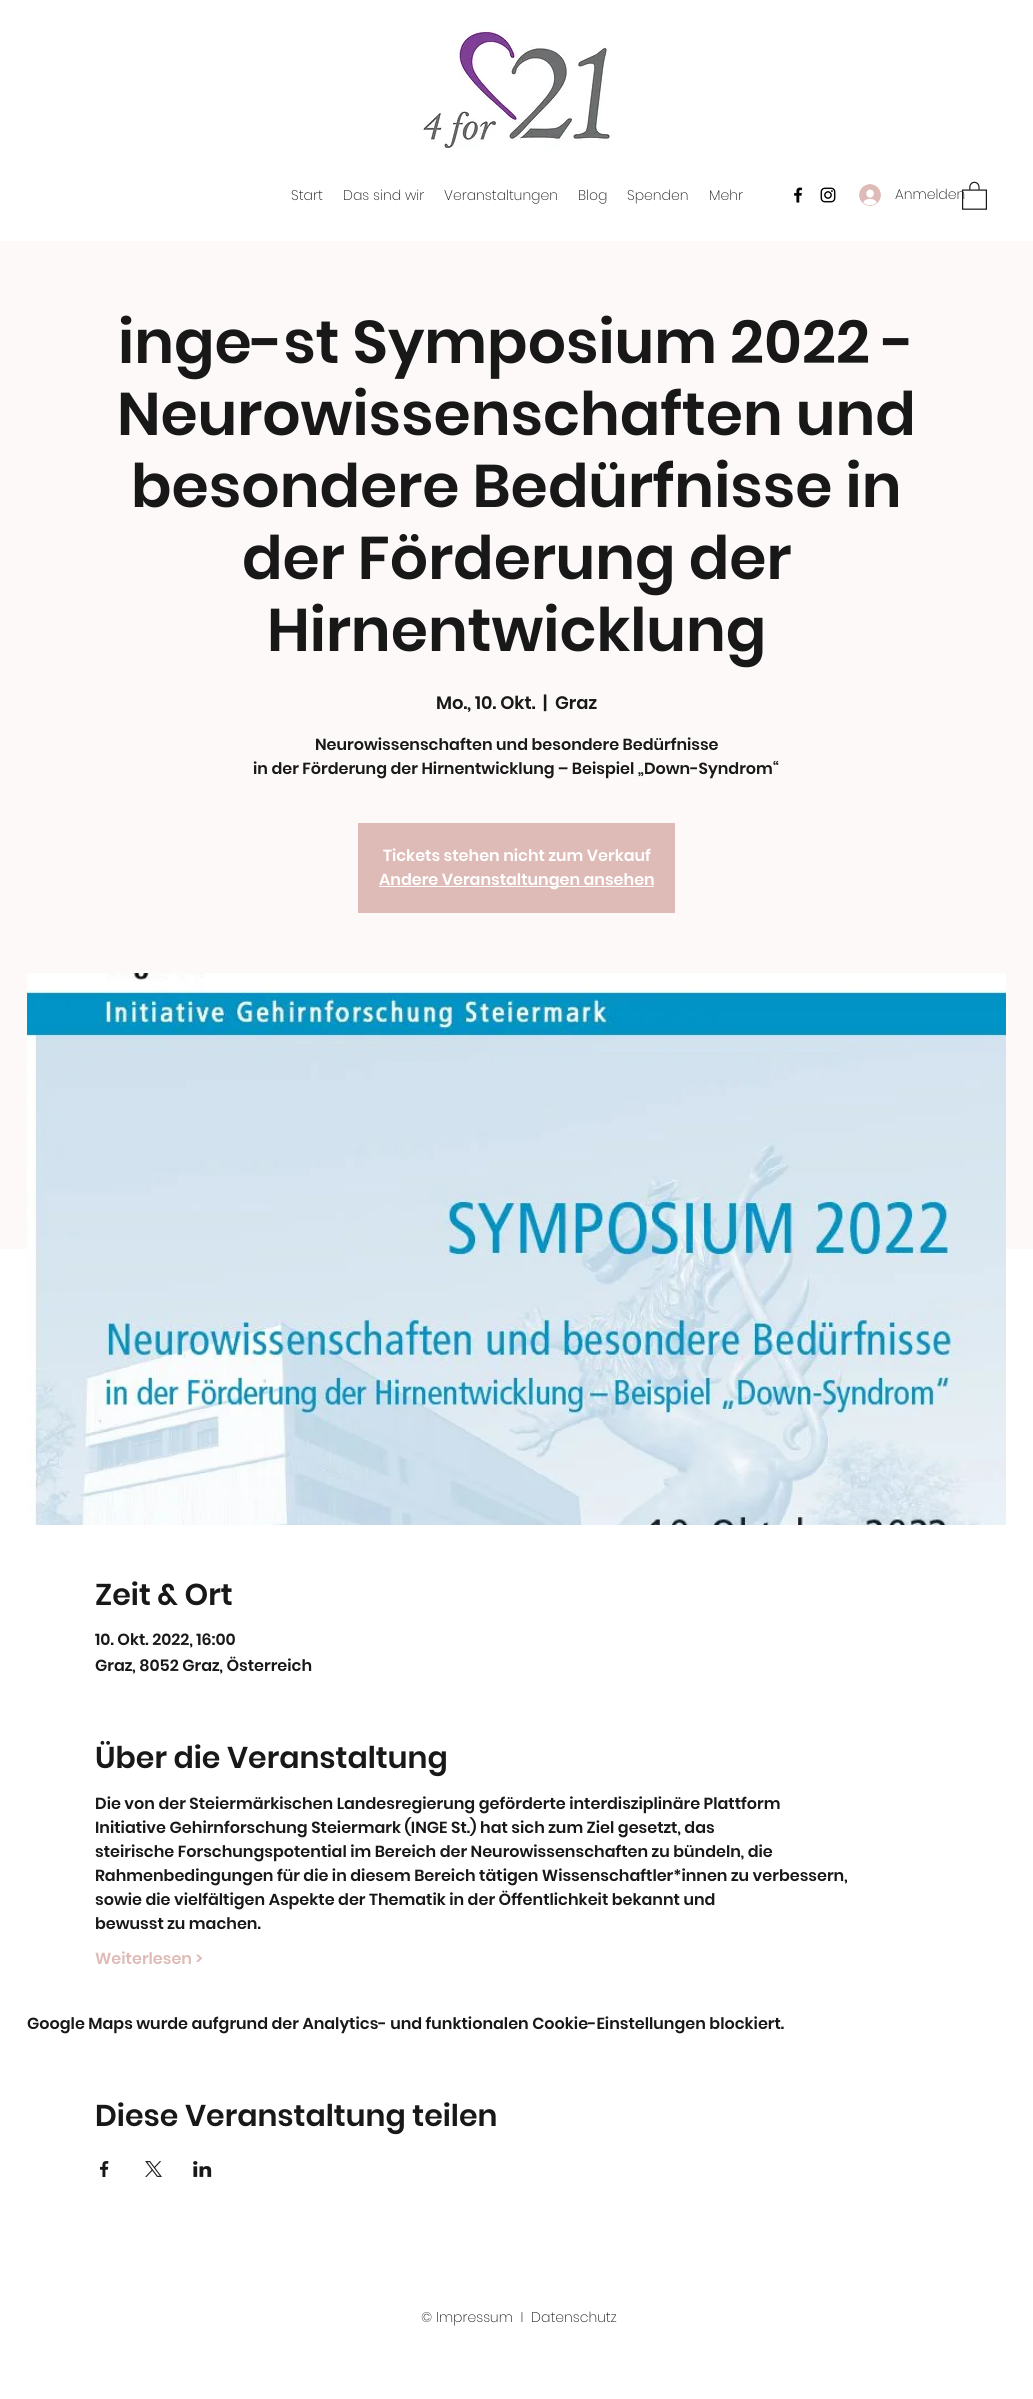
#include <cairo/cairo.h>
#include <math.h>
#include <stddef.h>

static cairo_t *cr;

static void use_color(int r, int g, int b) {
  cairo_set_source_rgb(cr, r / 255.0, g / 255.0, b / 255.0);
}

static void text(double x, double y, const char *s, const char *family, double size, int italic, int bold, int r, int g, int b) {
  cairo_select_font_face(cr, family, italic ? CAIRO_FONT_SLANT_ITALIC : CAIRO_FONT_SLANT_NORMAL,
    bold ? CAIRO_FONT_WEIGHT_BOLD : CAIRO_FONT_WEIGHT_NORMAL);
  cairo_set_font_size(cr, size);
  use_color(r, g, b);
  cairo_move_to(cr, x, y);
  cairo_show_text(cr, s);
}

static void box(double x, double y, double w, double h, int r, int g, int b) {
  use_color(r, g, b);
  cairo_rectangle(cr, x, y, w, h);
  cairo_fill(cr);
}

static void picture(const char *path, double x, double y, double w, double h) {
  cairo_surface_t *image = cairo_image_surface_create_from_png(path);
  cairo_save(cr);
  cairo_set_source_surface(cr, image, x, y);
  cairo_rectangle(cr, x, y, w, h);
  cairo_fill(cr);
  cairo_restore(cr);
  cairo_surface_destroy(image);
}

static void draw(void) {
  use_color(255, 255, 255);
  cairo_paint(cr);
  picture("img_01.png", 421, 30, 191, 119);
  picture("img_02.png", 794, 187, 9, 16);
  picture("img_03.png", 820, 187, 16, 16);
  picture("img_04.png", 859, 184, 22, 22);
  box(0, 241, 1033, 1008, 253, 249, 249);
  box(358, 823, 317, 90, 223, 187, 183);
  box(379, 886, 275, 1, 255, 255, 255);
  picture("img_06.png", 27, 973, 979, 552);
  picture("img_07.png", 100, 2161, 9, 16);
  picture("img_08.png", 145, 2161, 17, 16);
  picture("img_09.png", 193, 2161, 19, 16);
  text(291, 200, "Start", "Poppins ExtraLight", 14, 0, 0, 24, 24, 24);
  text(343, 200, "Das sind wir", "Poppins ExtraLight", 14, 0, 0, 24, 24, 24);
  text(444, 200, "Veranstaltungen", "Poppins ExtraLight", 14, 0, 0, 24, 24, 24);
  text(578, 200, "Blog", "Poppins ExtraLight", 14, 0, 0, 24, 24, 24);
  text(627, 200, "Spenden", "Poppins ExtraLight", 14, 0, 0, 24, 24, 24);
  text(709, 200, "Mehr", "Poppins ExtraLight", 14, 0, 0, 24, 24, 24);
  text(895, 199, "Anmelden", "Poppins ExtraLight", 14, 0, 0, 24, 24, 24);
  picture("img_05.png", 962, 181, 25, 29);
  text(118, 363, "inge-st Symposium 2022 -", "Poppins SemiBold", 60, 0, 0, 24, 24, 24);
  text(117, 435, "Neurowissenschaften und", "Poppins SemiBold", 60, 0, 0, 24, 24, 24);
  text(131, 507, "besondere Bedürfnisse in", "Poppins SemiBold", 60, 0, 0, 24, 24, 24);
  text(242, 579, "der Förderung der", "Poppins SemiBold", 60, 0, 0, 24, 24, 24);
  text(267, 651, "Hirnentwicklung", "Poppins SemiBold", 60, 0, 0, 24, 24, 24);
  text(436, 709, "Mo., 10. Okt.", "Poppins SemiBold", 18, 0, 0, 24, 24, 24);
  text(543, 709, "|", "Poppins SemiBold", 18, 0, 0, 24, 24, 24);
  text(555, 709, "Graz", "Poppins SemiBold", 18, 0, 0, 24, 24, 24);
  text(315, 750, "Neurowissenschaften und besondere Bedürfnisse", "Poppins SemiBold", 16, 0, 0, 24, 24, 24);
  text(253, 774, "in der Förderung der Hirnentwicklung – Beispiel „Down-Syndrom“", "Poppins SemiBold", 16, 0, 0, 24, 24, 24);
  text(383, 861, "Tickets stehen nicht zum Verkauf", "Poppins SemiBold", 16, 0, 0, 255, 255, 255);
  text(379, 885, "Andere Veranstaltungen ansehen", "Poppins SemiBold", 16, 0, 0, 255, 255, 255);
  text(95, 1605, "Zeit & Ort", "Poppins SemiBold", 30, 0, 0, 24, 24, 24);
  text(95, 1645, "10. Okt. 2022, 16:00", "Poppins SemiBold", 16, 0, 0, 24, 24, 24);
  text(95, 1671, "Graz, 8052 Graz, Österreich", "Poppins SemiBold", 16, 0, 0, 24, 24, 24);
  text(95, 1768, "Über die Veranstaltung", "Poppins SemiBold", 30, 0, 0, 24, 24, 24);
  text(95, 1809, "Die von der Steiermärkischen Landesregierung geförderte interdisziplinäre Plattform", "Poppins SemiBold", 16, 0, 0, 24, 24, 24);
  text(95, 1833, "Initiative Gehirnforschung Steiermark (INGE St.) hat sich zum Ziel gesetzt, das", "Poppins SemiBold", 16, 0, 0, 24, 24, 24);
  text(95, 1857, "steirische Forschungspotential im Bereich der Neurowissenschaften zu bündeln, die", "Poppins SemiBold", 16, 0, 0, 24, 24, 24);
  text(95, 1881, "Rahmenbedingungen für die in diesem Bereich tätigen Wissenschaftler*innen zu verbessern,", "Poppins SemiBold", 16, 0, 0, 24, 24, 24);
  text(95, 1905, "sowie die vielfältigen Aspekte der Thematik in der Öffentlichkeit bekannt und", "Poppins SemiBold", 16, 0, 0, 24, 24, 24);
  text(95, 1929, "bewusst zu machen.", "Poppins SemiBold", 16, 0, 0, 24, 24, 24);
  text(95, 1964, "Weiterlesen >", "Poppins SemiBold", 16, 0, 0, 223, 187, 183);
  text(27, 2029, "Google Maps wurde aufgrund der Analytics- und funktionalen Cookie-Einstellungen blockiert.", "Poppins SemiBold", 16, 0, 0, 24, 24, 24);
  text(95, 2126, "Diese Veranstaltung teilen", "Poppins SemiBold", 30, 0, 0, 24, 24, 24);
  text(421, 2322, "© Impressum  I  Datenschutz", "Poppins ExtraLight", 14, 0, 0, 24, 24, 24);
}

int main(void) {
  cairo_surface_t *surface = cairo_image_surface_create(CAIRO_FORMAT_RGB24, 1033, 2399);
  cr = cairo_create(surface);
  cairo_font_options_t *options = cairo_font_options_create();
  cairo_font_options_set_hint_metrics(options, CAIRO_HINT_METRICS_OFF);
  cairo_font_options_set_hint_style(options, CAIRO_HINT_STYLE_NONE);
  cairo_set_font_options(cr, options);
  cairo_set_miter_limit(cr, 4);
  draw();
  cairo_surface_write_to_png(surface, "out.png");
  cairo_font_options_destroy(options);
  cairo_destroy(cr);
  cairo_surface_destroy(surface);
  return 0;
}
